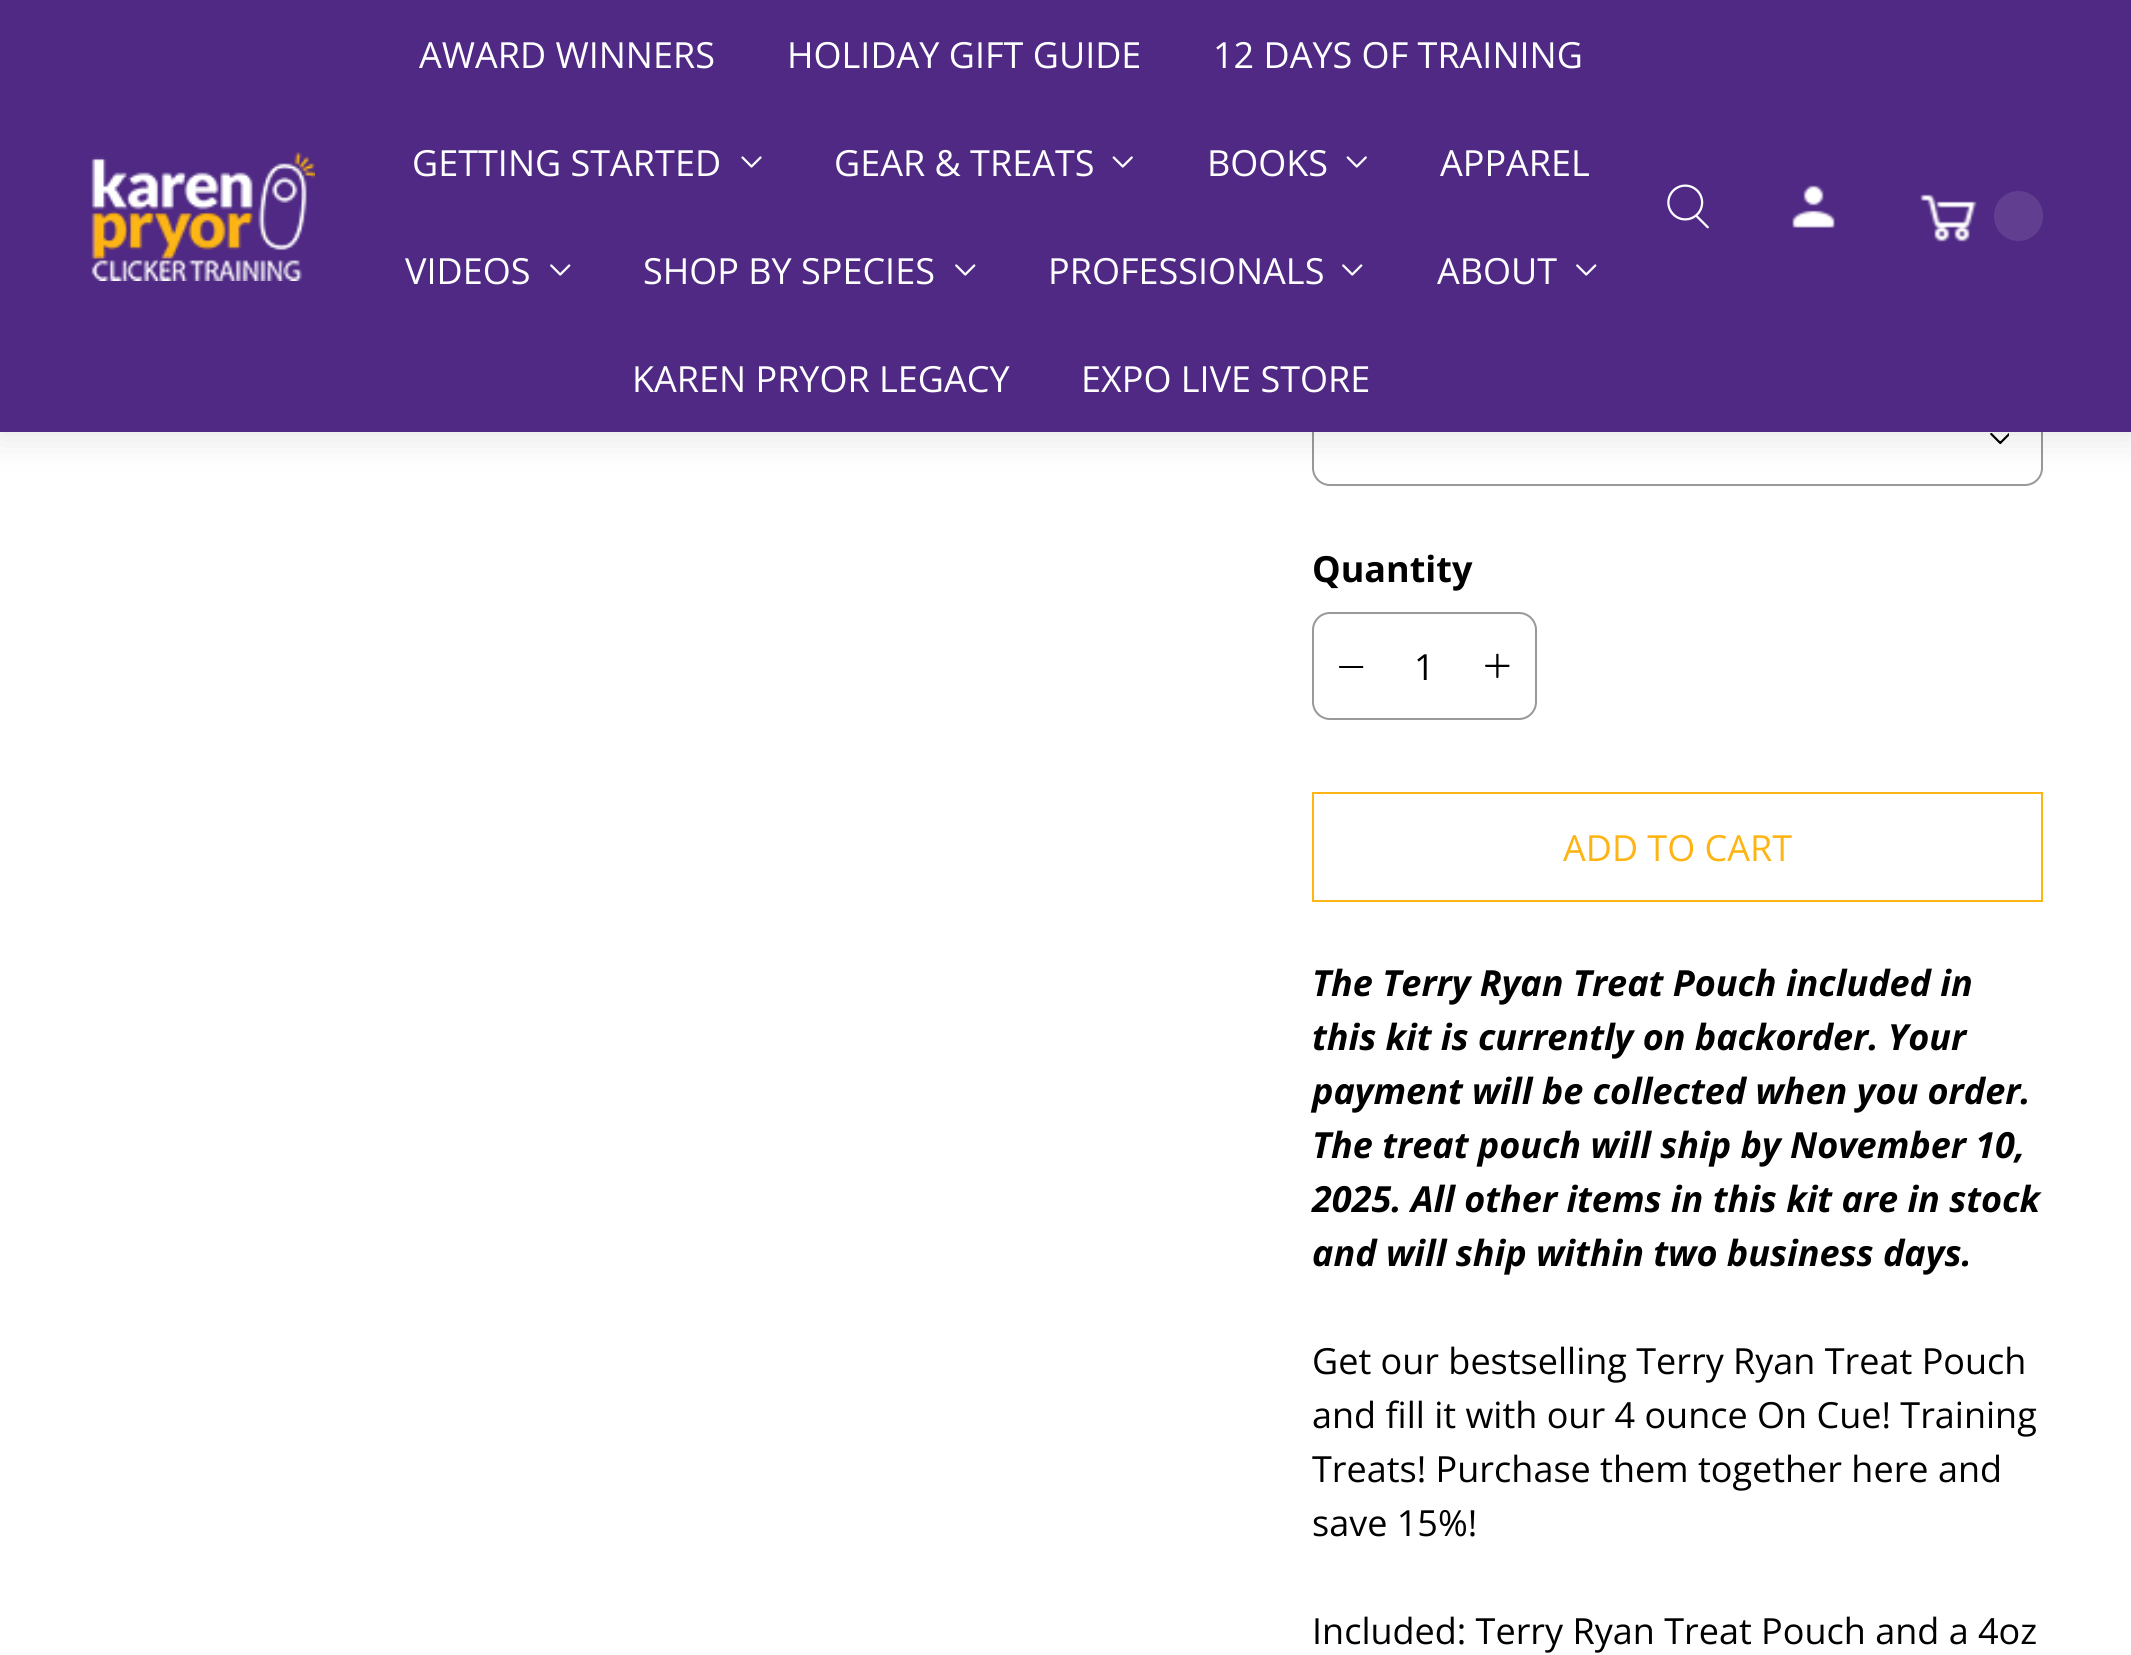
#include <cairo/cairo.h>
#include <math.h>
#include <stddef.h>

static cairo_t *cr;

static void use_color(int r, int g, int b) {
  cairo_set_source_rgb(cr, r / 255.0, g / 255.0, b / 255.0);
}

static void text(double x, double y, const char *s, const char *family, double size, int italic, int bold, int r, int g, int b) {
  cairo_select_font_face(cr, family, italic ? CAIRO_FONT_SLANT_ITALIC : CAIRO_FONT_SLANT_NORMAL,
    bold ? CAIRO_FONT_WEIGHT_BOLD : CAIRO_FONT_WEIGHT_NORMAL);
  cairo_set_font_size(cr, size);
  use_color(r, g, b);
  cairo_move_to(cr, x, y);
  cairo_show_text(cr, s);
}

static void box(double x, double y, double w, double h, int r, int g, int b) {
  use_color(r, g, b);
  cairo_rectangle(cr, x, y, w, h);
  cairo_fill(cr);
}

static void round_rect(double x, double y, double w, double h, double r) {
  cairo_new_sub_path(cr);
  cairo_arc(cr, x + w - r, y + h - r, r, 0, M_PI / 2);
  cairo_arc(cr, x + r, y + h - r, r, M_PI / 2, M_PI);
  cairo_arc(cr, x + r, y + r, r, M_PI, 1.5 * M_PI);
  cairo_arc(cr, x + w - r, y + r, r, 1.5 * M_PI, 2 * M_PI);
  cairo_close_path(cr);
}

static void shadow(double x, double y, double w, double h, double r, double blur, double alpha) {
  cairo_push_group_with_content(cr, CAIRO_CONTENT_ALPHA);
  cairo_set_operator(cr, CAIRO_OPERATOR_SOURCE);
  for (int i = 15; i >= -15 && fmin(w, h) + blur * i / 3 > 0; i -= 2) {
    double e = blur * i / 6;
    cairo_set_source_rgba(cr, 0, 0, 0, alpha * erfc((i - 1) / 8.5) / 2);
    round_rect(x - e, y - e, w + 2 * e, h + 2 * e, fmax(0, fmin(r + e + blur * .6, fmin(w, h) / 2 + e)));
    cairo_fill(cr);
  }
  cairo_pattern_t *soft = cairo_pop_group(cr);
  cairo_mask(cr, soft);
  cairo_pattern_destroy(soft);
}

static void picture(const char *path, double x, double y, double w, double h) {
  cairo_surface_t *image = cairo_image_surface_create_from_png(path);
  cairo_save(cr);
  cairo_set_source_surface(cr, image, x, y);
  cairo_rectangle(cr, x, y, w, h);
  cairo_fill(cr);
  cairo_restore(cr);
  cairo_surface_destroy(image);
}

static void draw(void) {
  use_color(255, 255, 255);
  cairo_paint(cr);
  round_rect(1313, 379, 729, 106, 17);
  use_color(153, 153, 153);
  cairo_stroke(cr);
  picture("img_08.png", 1990, 433, 19, 12);
  use_color(0, 0, 0);
  shadow(-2, 2, 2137, 437, 0, 18, 0.1);
  box(0, 0, 2131, 432, 79, 41, 132);
  picture("img_01.png", 91, 152, 224, 129);
  picture("img_02.png", 741, 156, 21, 12);
  picture("img_03.png", 1112, 156, 21, 12);
  picture("img_03.png", 1346, 156, 21, 12);
  picture("img_04.png", 550, 264, 21, 12);
  picture("img_04.png", 955, 264, 21, 12);
  picture("img_04.png", 1342, 264, 21, 12);
  picture("img_04.png", 1576, 264, 21, 12);
  picture("img_05.png", 1667, 184, 42, 45);
  picture("img_06.png", 1792, 185, 43, 43);
  picture("img_07.png", 1920, 194, 57, 48);
  use_color(97, 62, 144);
  round_rect(1994, 191, 49, 50, 24.5);
  cairo_fill(cr);
  round_rect(1313, 613, 223, 106, 17);
  use_color(153, 153, 153);
  cairo_stroke(cr);
  picture("img_09.png", 1339, 666, 25, 2);
  picture("img_10.png", 1485, 653, 25, 25);
  cairo_rectangle(cr, 1313, 793, 729, 108);
  use_color(253, 181, 21);
  cairo_stroke(cr);
  text(419, 68, "AWARD WINNERS", "Open Sans", 36, 0, 0, 255, 255, 255);
  text(787, 68, "HOLIDAY GIFT GUIDE", "Open Sans", 36, 0, 0, 255, 255, 255);
  text(1213, 68, "12 DAYS OF TRAINING", "Open Sans", 36, 0, 0, 255, 255, 255);
  text(412, 176, "GETTING STARTED", "Open Sans", 36, 0, 0, 255, 255, 255);
  text(834, 176, "GEAR & TREATS", "Open Sans", 36, 0, 0, 255, 255, 255);
  text(1207, 176, "BOOKS", "Open Sans", 36, 0, 0, 255, 255, 255);
  text(1440, 176, "APPAREL", "Open Sans", 36, 0, 0, 255, 255, 255);
  text(405, 284, "VIDEOS", "Open Sans", 36, 0, 0, 255, 255, 255);
  text(643, 284, "SHOP BY SPECIES", "Open Sans", 36, 0, 0, 255, 255, 255);
  text(1048, 284, "PROFESSIONALS", "Open Sans", 36, 0, 0, 255, 255, 255);
  text(1437, 284, "ABOUT", "Open Sans", 36, 0, 0, 255, 255, 255);
  text(632, 392, "KAREN PRYOR LEGACY", "Open Sans", 36, 0, 0, 255, 255, 255);
  text(1081, 392, "EXPO LIVE STORE", "Open Sans", 36, 0, 0, 255, 255, 255);
  text(1312, 582, "Quantity", "Open Sans", 36, 0, 1, 0, 0, 0);
  text(1414, 680, "1", "Open Sans", 36, 0, 0, 0, 0, 0);
  text(1563, 861, "ADD TO CART", "Open Sans", 36, 0, 0, 253, 181, 21);
  text(1312, 996, "The Terry Ryan Treat Pouch included in", "Open Sans", 36, 1, 1, 0, 0, 0);
  text(1312, 1050, "this kit is currently on backorder. Your", "Open Sans", 36, 1, 1, 0, 0, 0);
  text(1312, 1104, "payment will be collected when you order.", "Open Sans", 36, 1, 1, 0, 0, 0);
  text(1312, 1158, "The treat pouch will ship by November 10,", "Open Sans", 36, 1, 1, 0, 0, 0);
  text(1312, 1212, "2025. All other items in this kit are in stock", "Open Sans", 36, 1, 1, 0, 0, 0);
  text(1312, 1266, "and will ship within two business days.", "Open Sans", 36, 1, 1, 0, 0, 0);
  text(1312, 1374, "Get our bestselling Terry Ryan Treat Pouch", "Open Sans", 36, 0, 0, 0, 0, 0);
  text(1312, 1428, "and fill it with our 4 ounce On Cue! Training", "Open Sans", 36, 0, 0, 0, 0, 0);
  text(1312, 1482, "Treats! Purchase them together here and", "Open Sans", 36, 0, 0, 0, 0, 0);
  text(1312, 1536, "save 15%!", "Open Sans", 36, 0, 0, 0, 0, 0);
  text(1312, 1644, "Included: Terry Ryan Treat Pouch and a 4oz", "Open Sans", 36, 0, 0, 0, 0, 0);
}

int main(void) {
  cairo_surface_t *surface = cairo_image_surface_create(CAIRO_FORMAT_RGB24, 2131, 1655);
  cr = cairo_create(surface);
  cairo_font_options_t *options = cairo_font_options_create();
  cairo_font_options_set_hint_metrics(options, CAIRO_HINT_METRICS_OFF);
  cairo_font_options_set_hint_style(options, CAIRO_HINT_STYLE_NONE);
  cairo_set_font_options(cr, options);
  cairo_set_miter_limit(cr, 4);
  draw();
  cairo_surface_write_to_png(surface, "out.png");
  cairo_font_options_destroy(options);
  cairo_destroy(cr);
  cairo_surface_destroy(surface);
  return 0;
}
